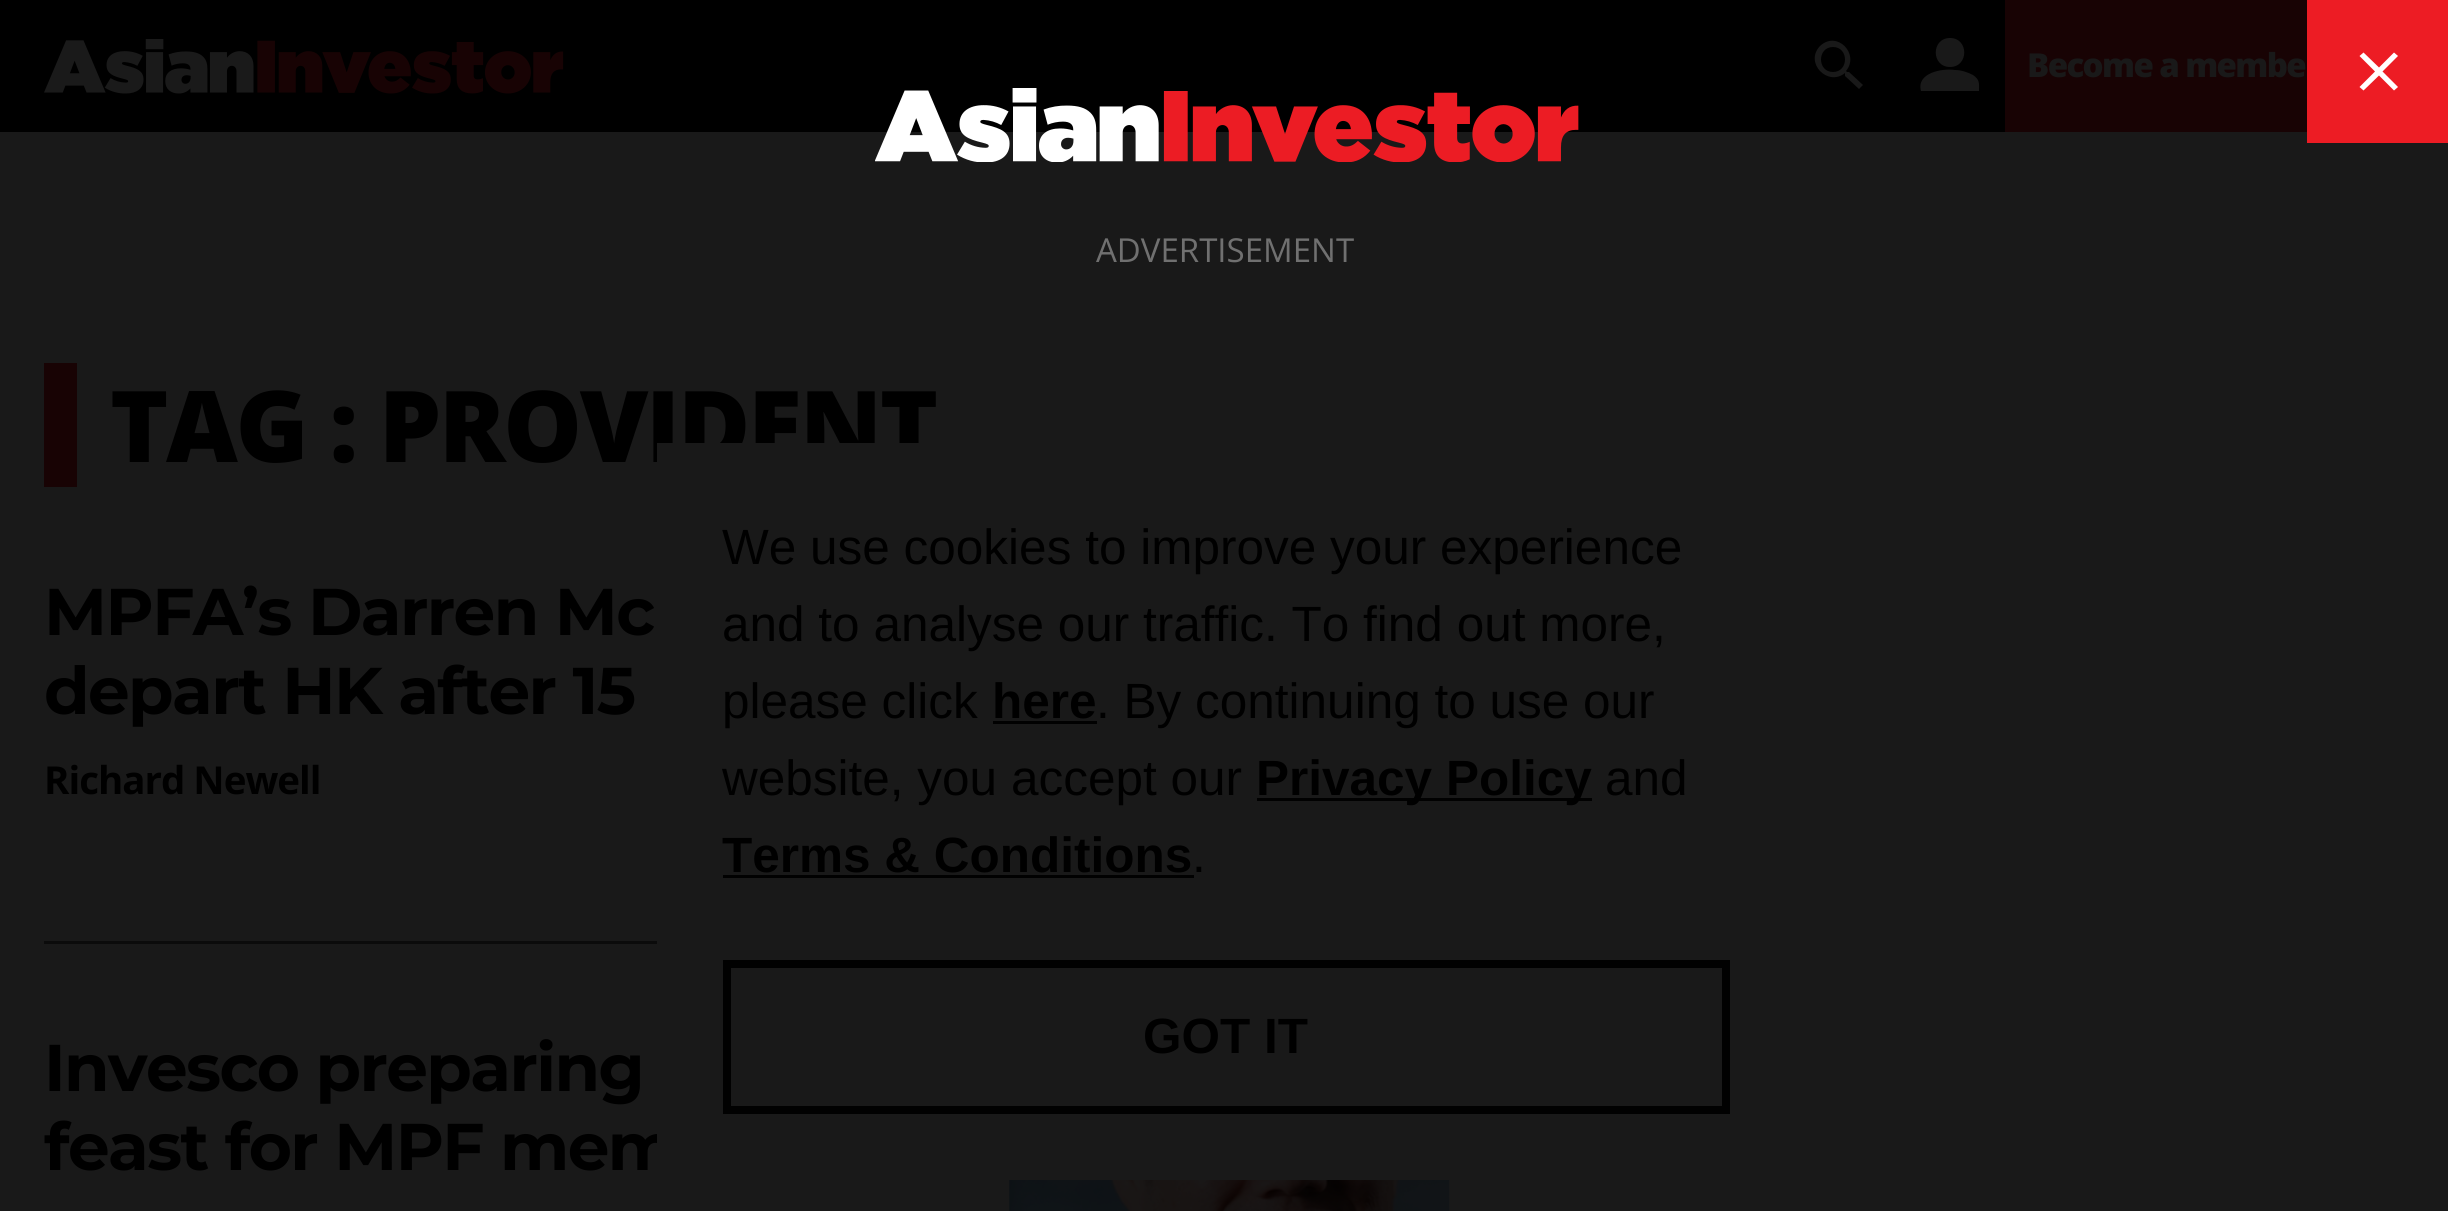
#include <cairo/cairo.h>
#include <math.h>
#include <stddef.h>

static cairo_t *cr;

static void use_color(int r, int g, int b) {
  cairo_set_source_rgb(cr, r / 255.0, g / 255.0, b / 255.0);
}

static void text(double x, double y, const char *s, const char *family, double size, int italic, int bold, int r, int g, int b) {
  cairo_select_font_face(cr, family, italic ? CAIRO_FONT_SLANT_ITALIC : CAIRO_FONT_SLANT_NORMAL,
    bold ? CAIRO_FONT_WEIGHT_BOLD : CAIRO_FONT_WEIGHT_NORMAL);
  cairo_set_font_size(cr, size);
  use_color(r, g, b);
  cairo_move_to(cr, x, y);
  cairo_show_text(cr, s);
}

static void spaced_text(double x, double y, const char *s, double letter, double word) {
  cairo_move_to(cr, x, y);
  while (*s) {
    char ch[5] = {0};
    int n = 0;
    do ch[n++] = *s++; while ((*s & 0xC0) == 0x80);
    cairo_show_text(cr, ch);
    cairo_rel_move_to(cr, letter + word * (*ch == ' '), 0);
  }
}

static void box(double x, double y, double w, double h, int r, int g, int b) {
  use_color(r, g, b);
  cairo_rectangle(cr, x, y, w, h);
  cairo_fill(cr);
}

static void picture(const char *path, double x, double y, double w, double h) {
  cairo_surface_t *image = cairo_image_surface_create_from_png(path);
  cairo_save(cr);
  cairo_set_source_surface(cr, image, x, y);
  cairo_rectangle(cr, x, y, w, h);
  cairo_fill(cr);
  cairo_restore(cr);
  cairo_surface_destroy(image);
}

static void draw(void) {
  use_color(25, 25, 25);
  cairo_paint(cr);
  box(0, 0, 2005, 132, 0, 0, 0);
  picture("img_01.png", 44, 39, 520, 55);
  use_color(25, 25, 25);
  cairo_new_path(cr);
  cairo_move_to(cr, 1833, 72);
  cairo_curve_to(cr, 1849, 72, 1849, 47, 1833, 47);
  cairo_curve_to(cr, 1817, 47, 1817, 72, 1833, 72);
  cairo_close_path(cr);
  cairo_move_to(cr, 1849, 72);
  cairo_line_to(cr, 1863, 85);
  cairo_line_to(cr, 1859, 89);
  cairo_line_to(cr, 1845, 76);
  cairo_line_to(cr, 1845, 73);
  cairo_curve_to(cr, 1828, 87, 1804, 63, 1820, 46);
  cairo_curve_to(cr, 1837, 30, 1860, 54, 1846, 71);
  cairo_line_to(cr, 1847, 72);
  cairo_close_path(cr);
  cairo_fill(cr);
  cairo_new_path(cr);
  cairo_move_to(cr, 1979, 91);
  cairo_line_to(cr, 1921, 91);
  cairo_curve_to(cr, 1916, 73, 1942, 68, 1955, 70);
  cairo_curve_to(cr, 1961, 70, 1967, 72, 1973, 75);
  cairo_curve_to(cr, 1980, 80, 1979, 83, 1979, 91);
  cairo_close_path(cr);
  cairo_move_to(cr, 1950, 67);
  cairo_curve_to(cr, 1931, 67, 1931, 38, 1950, 38);
  cairo_curve_to(cr, 1969, 38, 1969, 67, 1950, 67);
  cairo_close_path(cr);
  cairo_fill(cr);
  box(2005, 0, 302, 132, 24, 3, 4);
  picture("img_02.png", 875, 88, 704, 74);
  box(2307, 0, 141, 143, 237, 28, 36);
  use_color(255, 255, 255);
  cairo_new_path(cr);
  cairo_move_to(cr, 2398, 56);
  cairo_line_to(cr, 2382.5, 71.5);
  cairo_line_to(cr, 2398, 87);
  cairo_line_to(cr, 2394, 90.5);
  cairo_line_to(cr, 2379, 75.5);
  cairo_line_to(cr, 2363.5, 90.5);
  cairo_line_to(cr, 2359.5, 87);
  cairo_line_to(cr, 2375, 71.5);
  cairo_line_to(cr, 2359.5, 56);
  cairo_line_to(cr, 2363.5, 52.5);
  cairo_line_to(cr, 2379, 67.5);
  cairo_line_to(cr, 2394, 52.5);
  cairo_close_path(cr);
  cairo_fill(cr);
  box(44, 363, 33, 124, 24, 3, 4);
  box(44, 941, 613, 3, 11, 11, 11);
  picture("img_03.png", 1009, 1180, 441, 31);
  box(993, 721, 104, 3, 1, 1, 1);
  box(1257, 798, 335, 3, 1, 1, 1);
  cairo_select_font_face(cr, "Open Sans ExtraBold", CAIRO_FONT_SLANT_NORMAL, CAIRO_FONT_WEIGHT_NORMAL);
  cairo_set_font_size(cr, 33);
  use_color(25, 25, 25);
  spaced_text(2027, 77, "Become a membe", -1.6, 0);
  text(1096, 262, "ADVERTISEMENT", "Open Sans", 33, 0, 0, 112, 112, 112);
  cairo_select_font_face(cr, "Open Sans ExtraBold", CAIRO_FONT_SLANT_NORMAL, CAIRO_FONT_WEIGHT_NORMAL);
  cairo_set_font_size(cr, 99);
  use_color(0, 0, 0);
  spaced_text(110, 462, "TAG : PROVIDENT", -2.5, 0);
  cairo_select_font_face(cr, "Montserrat", CAIRO_FONT_SLANT_NORMAL, CAIRO_FONT_WEIGHT_BOLD);
  cairo_set_font_size(cr, 66);
  spaced_text(44, 635, "MPFA’s Darren Mc", -1.6, 0);
  spaced_text(44, 714, "depart HK after 15", -1.6, 0);
  cairo_select_font_face(cr, "Open Sans", CAIRO_FONT_SLANT_NORMAL, CAIRO_FONT_WEIGHT_BOLD);
  cairo_set_font_size(cr, 38.5);
  spaced_text(44, 794, "Richard Newell", -1, 0);
  cairo_select_font_face(cr, "Montserrat", CAIRO_FONT_SLANT_NORMAL, CAIRO_FONT_WEIGHT_BOLD);
  cairo_set_font_size(cr, 66);
  spaced_text(44, 1091, "Invesco preparing", -1.6, 0);
  spaced_text(44, 1170, "feast for MPF mem", -1.6, 0);
  box(657, 443, 262, 727, 25, 25, 25);
  text(722, 564, "We use cookies to improve your experience", "Liberation Sans", 49.5, 0, 0, 0, 0, 0);
  text(722, 641, "and to analyse our traffic. To find out more,", "Liberation Sans", 49.5, 0, 0, 0, 0, 0);
  text(722, 718, "please click", "Liberation Sans", 49.5, 0, 0, 0, 0, 0);
  text(992, 718, "here", "Liberation Sans", 49.5, 0, 1, 0, 0, 0);
  text(1096, 718, ". By continuing to use our", "Liberation Sans", 49.5, 0, 0, 0, 0, 0);
  text(722, 795, "website, you accept our", "Liberation Sans", 49.5, 0, 0, 0, 0, 0);
  text(1256, 795, "Privacy Policy", "Liberation Sans", 49.5, 0, 1, 0, 0, 0);
  text(1605, 795, "and", "Liberation Sans", 49.5, 0, 0, 0, 0, 0);
  text(722, 872, "Terms & Conditions", "Liberation Sans", 49.5, 0, 1, 0, 0, 0);
  box(723, 875, 471, 3, 1, 1, 1);
  text(1192, 872, ".", "Liberation Sans", 49.5, 0, 0, 0, 0, 0);
  cairo_rectangle(cr, 727, 964, 999, 146);
  use_color(1, 1, 1);
  cairo_set_line_width(cr, 8);
  cairo_stroke(cr);
  text(1143, 1053, "GOT IT", "Liberation Sans", 49.5, 0, 1, 0, 0, 0);
}

int main(void) {
  cairo_surface_t *surface = cairo_image_surface_create(CAIRO_FORMAT_RGB24, 2448, 1211);
  cr = cairo_create(surface);
  cairo_font_options_t *options = cairo_font_options_create();
  cairo_font_options_set_hint_metrics(options, CAIRO_HINT_METRICS_OFF);
  cairo_font_options_set_hint_style(options, CAIRO_HINT_STYLE_NONE);
  cairo_set_font_options(cr, options);
  cairo_set_miter_limit(cr, 4);
  draw();
  cairo_surface_write_to_png(surface, "out.png");
  cairo_font_options_destroy(options);
  cairo_destroy(cr);
  cairo_surface_destroy(surface);
  return 0;
}
